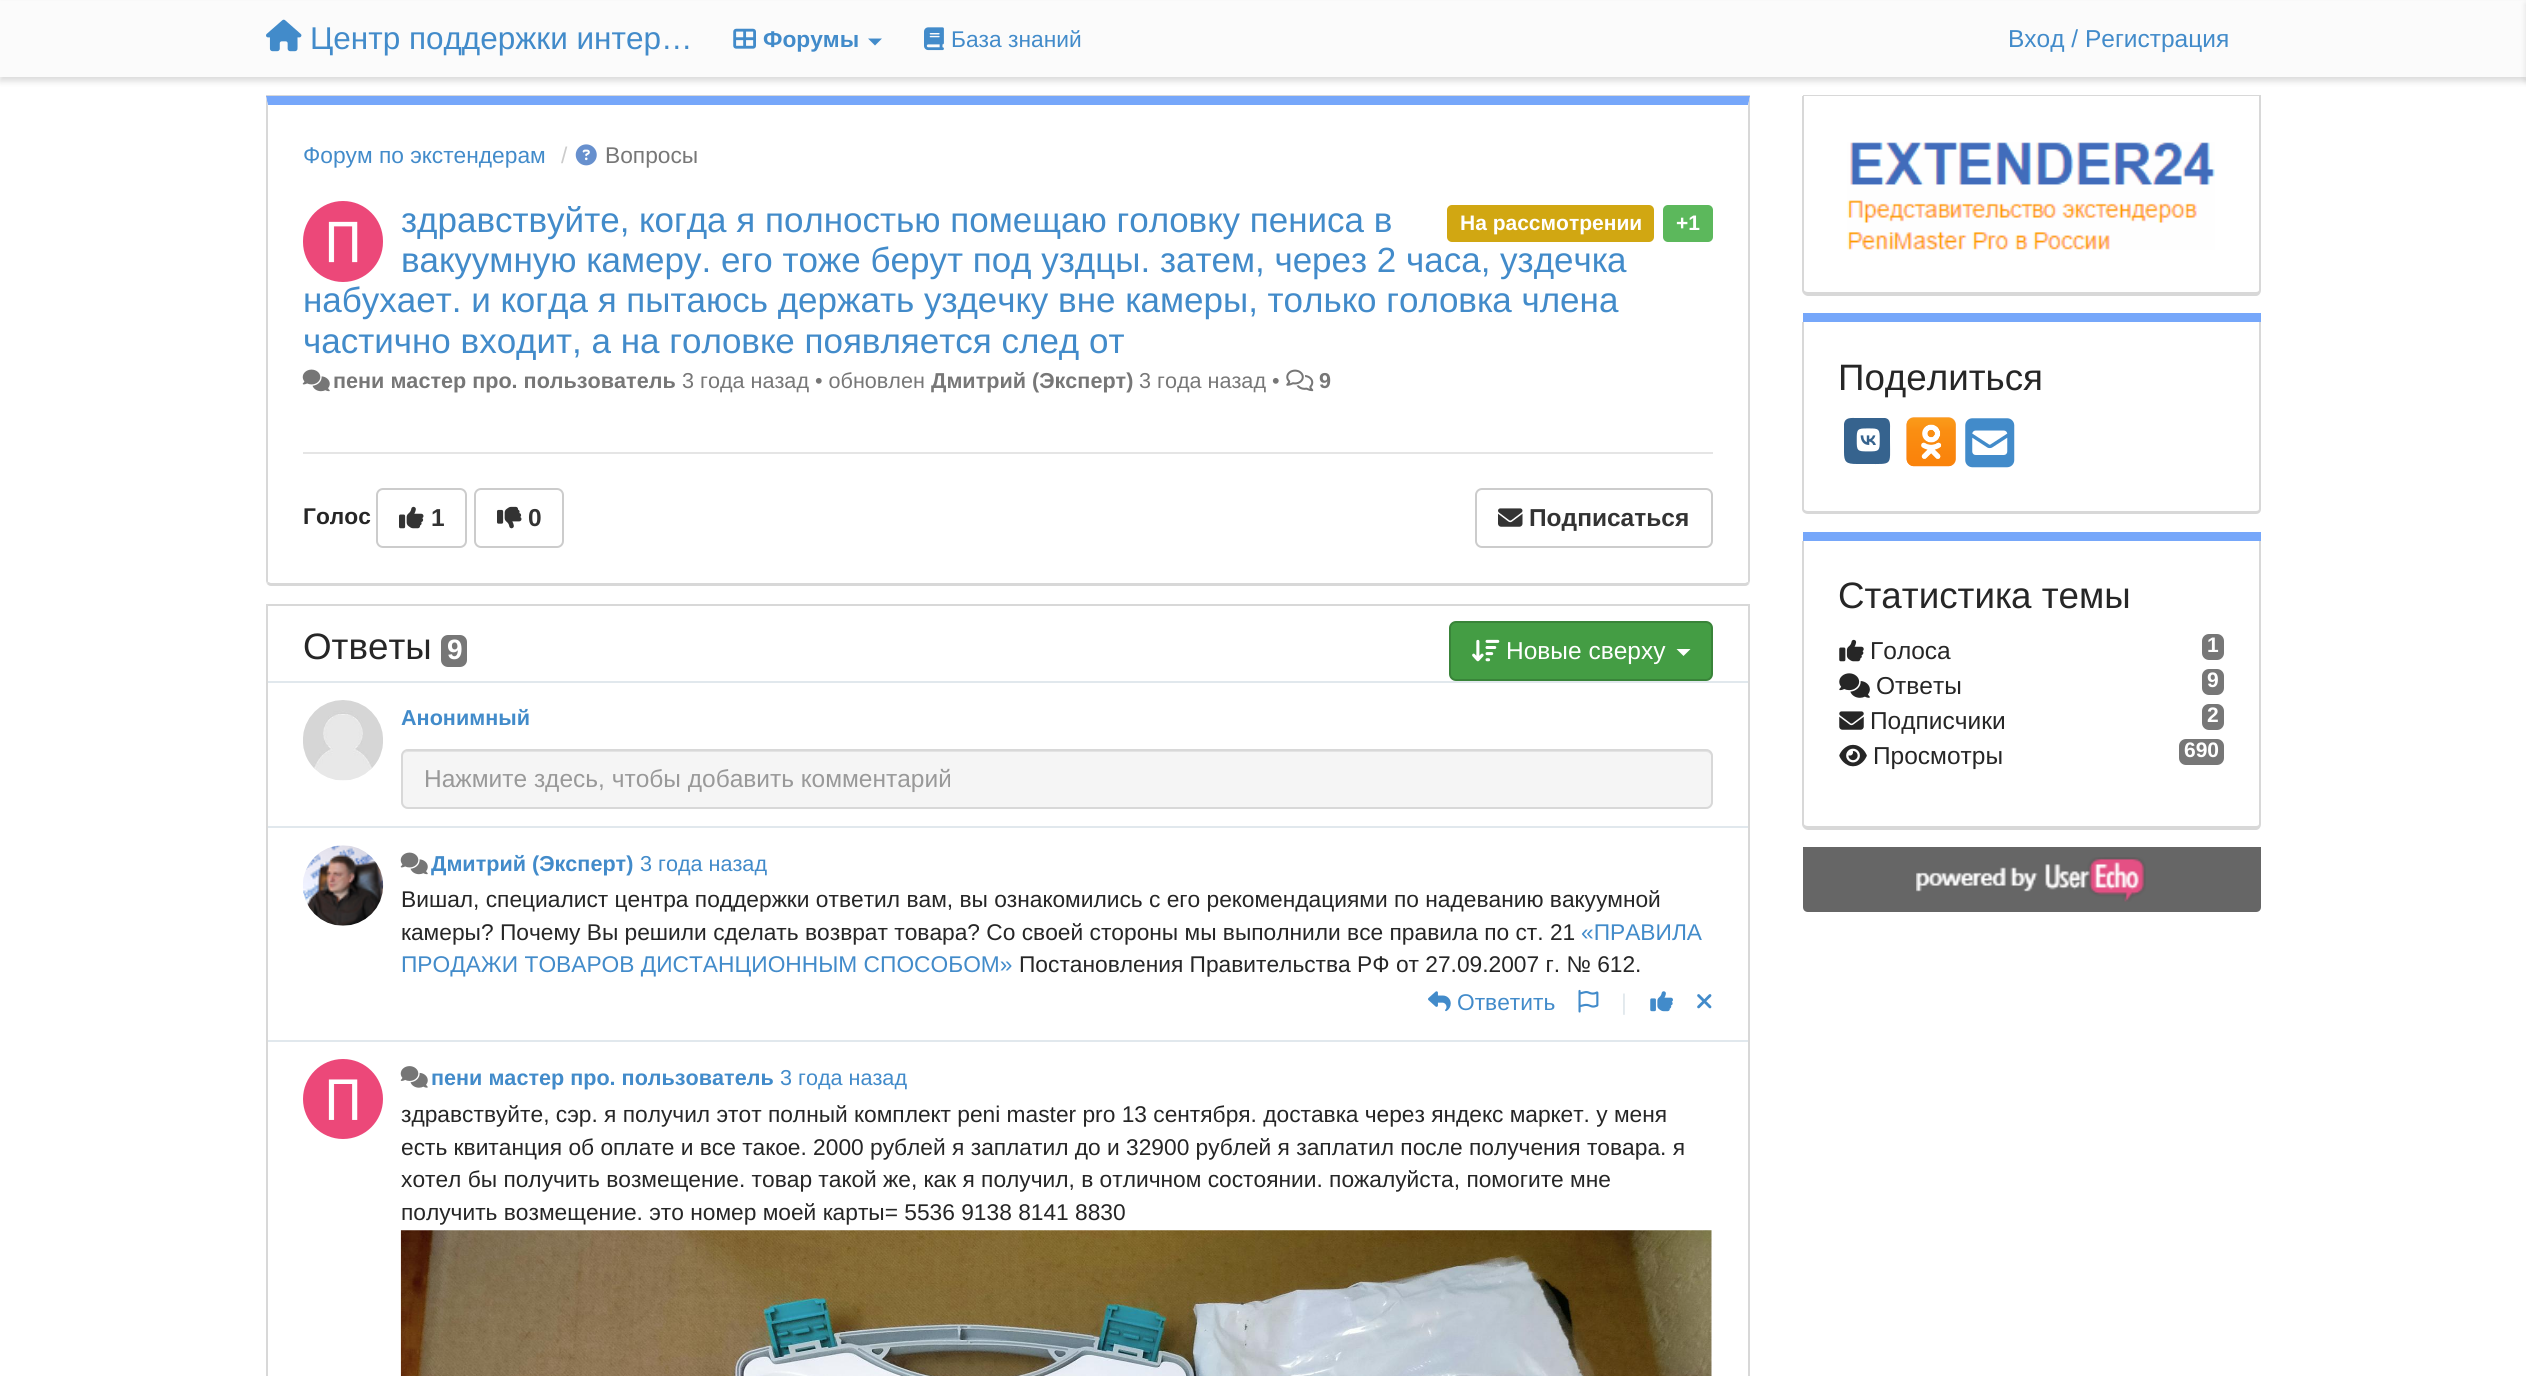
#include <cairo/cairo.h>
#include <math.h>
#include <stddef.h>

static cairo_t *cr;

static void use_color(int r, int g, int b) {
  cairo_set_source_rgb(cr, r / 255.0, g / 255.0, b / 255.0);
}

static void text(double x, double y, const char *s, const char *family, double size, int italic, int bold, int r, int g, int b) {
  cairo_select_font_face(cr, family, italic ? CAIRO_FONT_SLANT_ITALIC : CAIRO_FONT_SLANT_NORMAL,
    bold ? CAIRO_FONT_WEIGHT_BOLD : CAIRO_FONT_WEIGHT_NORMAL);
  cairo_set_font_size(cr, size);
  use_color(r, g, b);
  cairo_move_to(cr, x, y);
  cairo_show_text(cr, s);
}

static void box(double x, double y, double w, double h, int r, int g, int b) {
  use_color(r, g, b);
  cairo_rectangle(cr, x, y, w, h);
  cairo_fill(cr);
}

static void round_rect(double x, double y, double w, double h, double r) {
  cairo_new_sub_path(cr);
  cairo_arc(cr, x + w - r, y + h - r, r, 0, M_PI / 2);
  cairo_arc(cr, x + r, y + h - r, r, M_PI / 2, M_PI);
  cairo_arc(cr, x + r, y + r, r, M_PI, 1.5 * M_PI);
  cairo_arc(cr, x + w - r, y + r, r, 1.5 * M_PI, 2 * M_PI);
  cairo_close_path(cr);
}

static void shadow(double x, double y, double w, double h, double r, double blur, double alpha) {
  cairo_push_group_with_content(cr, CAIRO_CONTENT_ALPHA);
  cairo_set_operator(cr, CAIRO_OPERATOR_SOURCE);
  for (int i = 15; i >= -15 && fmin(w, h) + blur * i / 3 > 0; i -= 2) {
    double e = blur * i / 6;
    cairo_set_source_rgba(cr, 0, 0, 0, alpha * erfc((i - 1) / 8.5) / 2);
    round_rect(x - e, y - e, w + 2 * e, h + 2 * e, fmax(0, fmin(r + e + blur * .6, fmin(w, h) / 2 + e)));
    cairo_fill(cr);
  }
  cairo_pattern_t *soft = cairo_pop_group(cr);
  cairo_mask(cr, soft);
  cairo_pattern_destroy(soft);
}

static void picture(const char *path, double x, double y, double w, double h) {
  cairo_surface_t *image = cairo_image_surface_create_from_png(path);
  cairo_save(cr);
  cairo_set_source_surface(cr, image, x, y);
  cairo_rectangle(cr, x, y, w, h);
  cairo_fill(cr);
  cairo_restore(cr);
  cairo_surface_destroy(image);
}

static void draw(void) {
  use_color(255, 255, 255);
  cairo_paint(cr);
  use_color(0, 0, 0);
  shadow(0, 4, 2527, 77, 0, 3.5, 0.15);
  box(0, 1, 2526, 76, 251, 251, 251);
  picture("img_01.png", 266, 19, 36, 33);
  picture("img_02.png", 733, 28, 23, 21);
  use_color(66, 139, 202);
  cairo_new_path(cr);
  cairo_move_to(cr, 868, 38.5);
  cairo_line_to(cr, 882, 38.5);
  cairo_line_to(cr, 875, 45.5);
  cairo_close_path(cr);
  cairo_fill(cr);
  picture("img_03.png", 924, 27, 20, 24);
  use_color(0, 0, 0);
  shadow(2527, 4, 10, 77, 0, 3.5, 0.15);
  box(266, 95, 1484, 2, 216, 216, 216);
  use_color(118, 167, 250);
  cairo_new_path(cr);
  cairo_move_to(cr, 268, 105);
  cairo_line_to(cr, 1748, 105);
  cairo_line_to(cr, 1748, 106);
  cairo_line_to(cr, 1750, 96);
  cairo_line_to(cr, 266, 96);
  cairo_line_to(cr, 268, 106);
  cairo_close_path(cr);
  cairo_fill(cr);
  use_color(216, 216, 216);
  cairo_new_path(cr);
  cairo_move_to(cr, 1750, 96);
  cairo_line_to(cr, 1748, 106);
  cairo_line_to(cr, 1748, 582);
  cairo_line_to(cr, 1749, 584);
  cairo_line_to(cr, 1750, 581);
  cairo_close_path(cr);
  cairo_fill(cr);
  cairo_new_path(cr);
  cairo_move_to(cr, 1749, 584);
  cairo_curve_to(cr, 1748, 585, 1747, 586, 1745, 586);
  cairo_line_to(cr, 271, 586);
  cairo_curve_to(cr, 269, 586, 268, 585, 267, 584);
  cairo_line_to(cr, 268, 582);
  cairo_curve_to(cr, 269, 582, 270, 583, 271, 583);
  cairo_line_to(cr, 1745, 583);
  cairo_curve_to(cr, 1746, 583, 1747, 582, 1748, 582);
  cairo_close_path(cr);
  cairo_fill(cr);
  cairo_new_path(cr);
  cairo_move_to(cr, 266, 96);
  cairo_line_to(cr, 266, 581);
  cairo_line_to(cr, 267, 584);
  cairo_line_to(cr, 268, 582);
  cairo_line_to(cr, 268, 106);
  cairo_close_path(cr);
  cairo_fill(cr);
  picture("img_04.png", 575, 144, 22, 22);
  use_color(236, 72, 121);
  round_rect(303, 201, 80, 81, 40);
  cairo_fill(cr);
  picture("img_05.png", 328, 221, 30, 42);
  use_color(209, 167, 18);
  round_rect(1447, 205, 207, 37, 5);
  cairo_fill(cr);
  use_color(92, 184, 92);
  round_rect(1663, 205, 50, 37, 5);
  cairo_fill(cr);
  picture("img_06.png", 302, 369, 28, 23);
  picture("img_07.png", 1286, 369, 28, 23);
  box(303, 452, 1410, 2, 229, 229, 229);
  round_rect(377, 489, 89, 58, 6);
  use_color(204, 204, 204);
  cairo_stroke(cr);
  picture("img_08.png", 399, 506, 25, 23);
  round_rect(475, 489, 88, 58, 6);
  cairo_stroke(cr);
  picture("img_09.png", 497, 506, 25, 23);
  round_rect(1476, 489, 236, 58, 6);
  cairo_stroke(cr);
  picture("img_10.png", 1498, 508, 25, 19);
  box(266, 604, 1484, 2, 216, 216, 216);
  cairo_set_fill_rule(cr, CAIRO_FILL_RULE_EVEN_ODD);
  cairo_new_path(cr);
  cairo_move_to(cr, 266, 606);
  cairo_line_to(cr, 1750, 606);
  cairo_line_to(cr, 1750, 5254);
  cairo_curve_to(cr, 1750, 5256, 1748, 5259, 1745, 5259);
  cairo_line_to(cr, 271, 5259);
  cairo_curve_to(cr, 268, 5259, 266, 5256, 266, 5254);
  cairo_close_path(cr);
  cairo_move_to(cr, 268, 606);
  cairo_line_to(cr, 1748, 606);
  cairo_line_to(cr, 1748, 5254);
  cairo_curve_to(cr, 1748, 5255, 1747, 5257, 1745, 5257);
  cairo_line_to(cr, 271, 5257);
  cairo_curve_to(cr, 269, 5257, 268, 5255, 268, 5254);
  cairo_close_path(cr);
  cairo_fill(cr);
  use_color(119, 119, 119);
  round_rect(441, 635, 26, 32, 7);
  cairo_fill(cr);
  use_color(68, 157, 68);
  round_rect(1450, 622, 262, 58, 6);
  cairo_fill_preserve(cr);
  use_color(57, 132, 57);
  cairo_stroke(cr);
  picture("img_11.png", 1472, 639, 28, 23);
  use_color(255, 255, 255);
  cairo_set_fill_rule(cr, CAIRO_FILL_RULE_WINDING);
  cairo_new_path(cr);
  cairo_move_to(cr, 1676.5, 649);
  cairo_line_to(cr, 1690.5, 649);
  cairo_line_to(cr, 1683.5, 656);
  cairo_close_path(cr);
  cairo_fill(cr);
  box(268, 681, 1480, 2, 225, 232, 237);
  box(268, 826, 1480, 2, 225, 232, 237);
  picture("img_12.png", 303, 700, 80, 81);
  use_color(245, 245, 245);
  round_rect(401, 749, 1312, 60, 7);
  cairo_fill(cr);
  use_color(227, 227, 227);
  cairo_new_path(cr);
  cairo_move_to(cr, 408, 752);
  cairo_line_to(cr, 1706, 752);
  cairo_curve_to(cr, 1709, 752, 1712, 755, 1712, 758);
  cairo_line_to(cr, 1712, 756);
  cairo_curve_to(cr, 1712, 753, 1710, 751, 1707, 751);
  cairo_line_to(cr, 408, 751);
  cairo_curve_to(cr, 406, 751, 404, 753, 403, 755);
  cairo_curve_to(cr, 404, 753, 406, 752, 408, 752);
  cairo_close_path(cr);
  cairo_fill(cr);
  round_rect(402, 750, 1310, 58, 6);
  use_color(216, 216, 216);
  cairo_stroke(cr);
  box(268, 1040, 1480, 2, 225, 232, 237);
  picture("img_13.png", 303, 845, 81, 81);
  picture("img_06.png", 400, 852, 28, 23);
  picture("img_14.png", 1428, 991, 23, 21);
  picture("img_15.png", 1578, 989, 21, 24);
  picture("img_16.png", 1650, 991, 23, 21);
  picture("img_17.png", 1697, 994, 15, 15);
  use_color(236, 72, 121);
  cairo_arc(cr, 343, 1099, 40, 0, 2 * M_PI);
  cairo_fill(cr);
  picture("img_18.png", 328, 1079, 30, 41);
  picture("img_19.png", 400, 1066, 28, 22);
  picture("img_20.png", 400, 1230, 1312, 146);
  box(1803, 95, 458, 1, 216, 216, 216);
  cairo_set_fill_rule(cr, CAIRO_FILL_RULE_EVEN_ODD);
  cairo_new_path(cr);
  cairo_move_to(cr, 1802, 96);
  cairo_line_to(cr, 2261, 96);
  cairo_line_to(cr, 2261, 290);
  cairo_curve_to(cr, 2261, 293, 2259, 296, 2256, 296);
  cairo_line_to(cr, 1808, 296);
  cairo_curve_to(cr, 1805, 296, 1802, 293, 1802, 290);
  cairo_close_path(cr);
  cairo_move_to(cr, 1804, 96);
  cairo_line_to(cr, 2259, 96);
  cairo_line_to(cr, 2259, 290);
  cairo_curve_to(cr, 2259, 291, 2258, 292, 2256, 292);
  cairo_line_to(cr, 1808, 292);
  cairo_curve_to(cr, 1806, 292, 1804, 291, 1804, 290);
  cairo_close_path(cr);
  cairo_fill(cr);
  picture("img_21.png", 1847, 142, 368, 108);
  box(1803, 313, 458, 9, 118, 167, 250);
  use_color(216, 216, 216);
  cairo_new_path(cr);
  cairo_move_to(cr, 1802, 322);
  cairo_line_to(cr, 2261, 322);
  cairo_line_to(cr, 2261, 509);
  cairo_curve_to(cr, 2261, 512, 2259, 514, 2256, 514);
  cairo_line_to(cr, 1808, 514);
  cairo_curve_to(cr, 1805, 514, 1802, 512, 1802, 509);
  cairo_close_path(cr);
  cairo_move_to(cr, 1804, 322);
  cairo_line_to(cr, 2259, 322);
  cairo_line_to(cr, 2259, 509);
  cairo_curve_to(cr, 2259, 510, 2258, 511, 2256, 511);
  cairo_line_to(cr, 1808, 511);
  cairo_curve_to(cr, 1806, 511, 1804, 510, 1804, 509);
  cairo_close_path(cr);
  cairo_fill(cr);
  use_color(54, 99, 142);
  cairo_set_fill_rule(cr, CAIRO_FILL_RULE_WINDING);
  cairo_new_path(cr);
  cairo_move_to(cr, 1844, 424);
  cairo_curve_to(cr, 1845, 417, 1851, 418, 1857, 418);
  cairo_line_to(cr, 1885, 418);
  cairo_curve_to(cr, 1891, 419, 1890, 425, 1890, 430);
  cairo_line_to(cr, 1890, 441);
  cairo_curve_to(cr, 1890, 466, 1893, 464, 1867, 464);
  cairo_line_to(cr, 1857, 464);
  cairo_curve_to(cr, 1846, 464, 1844, 462, 1844, 452);
  cairo_close_path(cr);
  cairo_fill(cr);
  picture("img_22.png", 1856, 428, 24, 24);
  picture("img_23.png", 1906, 417, 50, 50);
  picture("img_24.png", 1965, 418, 50, 50);
  box(1803, 532, 458, 9, 118, 167, 250);
  use_color(216, 216, 216);
  cairo_set_fill_rule(cr, CAIRO_FILL_RULE_EVEN_ODD);
  cairo_new_path(cr);
  cairo_move_to(cr, 1802, 541);
  cairo_line_to(cr, 2261, 541);
  cairo_line_to(cr, 2261, 824);
  cairo_curve_to(cr, 2261, 827, 2259, 830, 2256, 830);
  cairo_line_to(cr, 1808, 830);
  cairo_curve_to(cr, 1805, 830, 1802, 827, 1802, 824);
  cairo_close_path(cr);
  cairo_move_to(cr, 1804, 541);
  cairo_line_to(cr, 2259, 541);
  cairo_line_to(cr, 2259, 824);
  cairo_curve_to(cr, 2259, 825, 2258, 826, 2256, 826);
  cairo_line_to(cr, 1808, 826);
  cairo_curve_to(cr, 1806, 826, 1804, 825, 1804, 824);
  cairo_close_path(cr);
  cairo_fill(cr);
  picture("img_25.png", 1839, 639, 25, 23);
  use_color(119, 119, 119);
  round_rect(2202, 634, 22, 26, 7);
  cairo_fill(cr);
  picture("img_26.png", 1839, 673, 31, 25);
  round_rect(2202, 669, 22, 26, 7);
  cairo_fill(cr);
  picture("img_27.png", 1839, 711, 25, 19);
  round_rect(2202, 704, 22, 26, 7);
  cairo_fill(cr);
  picture("img_28.png", 1839, 744, 28, 23);
  round_rect(2179, 739, 45, 26, 7);
  cairo_fill(cr);
  use_color(102, 102, 102);
  cairo_new_path(cr);
  cairo_move_to(cr, 1803, 847);
  cairo_line_to(cr, 2261, 847);
  cairo_line_to(cr, 2261, 907);
  cairo_curve_to(cr, 2261, 910, 2259, 912, 2256, 912);
  cairo_line_to(cr, 1808, 912);
  cairo_curve_to(cr, 1805, 912, 1803, 910, 1803, 907);
  cairo_close_path(cr);
  cairo_fill(cr);
  picture("img_29.png", 1916, 857, 230, 45);
  text(310, 49, "Центр поддержки интер…", "Liberation Sans", 31.5, 0, 0, 66, 139, 202);
  text(763, 47, "Форумы", "Liberation Sans", 22.75, 0, 1, 66, 139, 202);
  text(951, 47, "База знаний", "Liberation Sans", 22.75, 0, 0, 66, 139, 202);
  text(2008, 47, "Вход / Регистрация", "Liberation Sans", 24.5, 0, 0, 66, 139, 202);
  text(303, 163, "Форум по экстендерам", "Liberation Sans", 22.75, 0, 0, 66, 139, 202);
  text(561, 163, "/", "Liberation Sans", 22.75, 0, 0, 204, 204, 204);
  text(605, 163, "Вопросы", "Liberation Sans", 22.75, 0, 0, 119, 119, 119);
  text(401, 232, "здравствуйте, когда я полностью помещаю головку пениса в", "Liberation Sans", 35, 0, 0, 66, 139, 202);
  text(401, 272, "вакуумную камеру. его тоже берут под уздцы. затем, через 2 часа, уздечка", "Liberation Sans", 35, 0, 0, 66, 139, 202);
  text(303, 312, "набухает. и когда я пытаюсь держать уздечку вне камеры, только головка члена", "Liberation Sans", 35, 0, 0, 66, 139, 202);
  text(303, 353, "частично входит, а на головке появляется след от", "Liberation Sans", 35, 0, 0, 66, 139, 202);
  text(1460, 230, "На рассмотрении", "Liberation Sans", 21, 0, 1, 255, 255, 255);
  text(1676, 230, "+1", "Liberation Sans", 21, 0, 1, 255, 255, 255);
  text(333, 388, "пени мастер про. пользователь", "Liberation Sans", 21.6, 0, 1, 119, 119, 119);
  text(682, 388, "3 года назад • обновлен", "Liberation Sans", 21.6, 0, 0, 119, 119, 119);
  text(931, 388, "Дмитрий (Эксперт)", "Liberation Sans", 21.6, 0, 1, 119, 119, 119);
  text(1139, 388, "3 года назад •", "Liberation Sans", 21.6, 0, 0, 119, 119, 119);
  text(1319, 388, "9", "Liberation Sans", 21.6, 0, 1, 119, 119, 119);
  text(303, 524, "Голос", "Liberation Sans", 22.75, 0, 1, 38, 38, 38);
  text(431, 526, "1", "Liberation Sans", 24.5, 0, 1, 51, 51, 51);
  text(528, 526, "0", "Liberation Sans", 24.5, 0, 1, 51, 51, 51);
  text(1529, 526, "Подписаться", "Liberation Sans", 24.5, 0, 1, 51, 51, 51);
  text(303, 659, "Ответы", "Liberation Sans", 36.75, 0, 0, 38, 38, 38);
  text(447, 659, "9", "Liberation Sans", 28, 0, 1, 255, 255, 255);
  text(1506, 659, "Новые сверху", "Liberation Sans", 24.5, 0, 0, 255, 255, 255);
  text(401, 725, "Анонимный", "Liberation Sans", 21.6, 0, 1, 66, 139, 202);
  text(424, 787, "Нажмите здесь, чтобы добавить комментарий", "Liberation Sans", 24.5, 0, 0, 153, 153, 153);
  text(431, 871, "Дмитрий (Эксперт)", "Liberation Sans", 21.6, 0, 1, 66, 139, 202);
  text(640, 871, "3 года назад", "Liberation Sans", 21.6, 0, 0, 66, 139, 202);
  text(401, 907, "Вишал, специалист центра поддержки ответил вам, вы ознакомились с его рекомендациями по надеванию вакуумной", "Liberation Sans", 22.75, 0, 0, 38, 38, 38);
  text(401, 940, "камеры? Почему Вы решили сделать возврат товара? Со своей стороны мы выполнили все правила по ст. 21", "Liberation Sans", 22.75, 0, 0, 38, 38, 38);
  text(1581, 940, "«ПРАВИЛА", "Liberation Sans", 22.75, 0, 0, 66, 139, 202);
  text(401, 972, "ПРОДАЖИ ТОВАРОВ ДИСТАНЦИОННЫМ СПОСОБОМ»", "Liberation Sans", 22.75, 0, 0, 66, 139, 202);
  text(1019, 972, "Постановления Правительства РФ от 27.09.2007 г. № 612.", "Liberation Sans", 22.75, 0, 0, 38, 38, 38);
  text(1457, 1010, "Ответить", "Liberation Sans", 22.75, 0, 0, 66, 139, 202);
  text(1621, 1010, "|", "Liberation Sans", 22.75, 0, 0, 225, 232, 237);
  text(431, 1085, "пени мастер про. пользователь", "Liberation Sans", 21.6, 0, 1, 66, 139, 202);
  text(780, 1085, "3 года назад", "Liberation Sans", 21.6, 0, 0, 66, 139, 202);
  text(401, 1122, "здравствуйте, сэр. я получил этот полный комплект peni master pro 13 сентября. доставка через яндекс маркет. у меня", "Liberation Sans", 22.75, 0, 0, 38, 38, 38);
  text(401, 1155, "есть квитанция об оплате и все такое. 2000 рублей я заплатил до и 32900 рублей я заплатил после получения товара. я", "Liberation Sans", 22.75, 0, 0, 38, 38, 38);
  text(401, 1187, "хотел бы получить возмещение. товар такой же, как я получил, в отличном состоянии. пожалуйста, помогите мне", "Liberation Sans", 22.75, 0, 0, 38, 38, 38);
  text(401, 1220, "получить возмещение. это номер моей карты= 5536 9138 8141 8830", "Liberation Sans", 22.75, 0, 0, 38, 38, 38);
  text(1838, 390, "Поделиться", "Liberation Sans", 36.75, 0, 0, 38, 38, 38);
  text(1838, 608, "Статистика темы", "Liberation Sans", 36.75, 0, 0, 38, 38, 38);
  text(1870, 659, "Голоса", "Liberation Sans", 24.5, 0, 0, 38, 38, 38);
  text(2207, 652, "1", "Liberation Sans", 21, 0, 1, 255, 255, 255);
  text(1876, 694, "Ответы", "Liberation Sans", 24.5, 0, 0, 38, 38, 38);
  text(2207, 687, "9", "Liberation Sans", 21, 0, 1, 255, 255, 255);
  text(1870, 729, "Подписчики", "Liberation Sans", 24.5, 0, 0, 38, 38, 38);
  text(2207, 722, "2", "Liberation Sans", 21, 0, 1, 255, 255, 255);
  text(1873, 764, "Просмотры", "Liberation Sans", 24.5, 0, 0, 38, 38, 38);
  text(2184, 757, "690", "Liberation Sans", 21, 0, 1, 255, 255, 255);
}

int main(void) {
  cairo_surface_t *surface = cairo_image_surface_create(CAIRO_FORMAT_RGB24, 2526, 1376);
  cr = cairo_create(surface);
  cairo_font_options_t *options = cairo_font_options_create();
  cairo_font_options_set_hint_metrics(options, CAIRO_HINT_METRICS_OFF);
  cairo_font_options_set_hint_style(options, CAIRO_HINT_STYLE_NONE);
  cairo_set_font_options(cr, options);
  cairo_set_miter_limit(cr, 4);
  draw();
  cairo_surface_write_to_png(surface, "out.png");
  cairo_font_options_destroy(options);
  cairo_destroy(cr);
  cairo_surface_destroy(surface);
  return 0;
}
